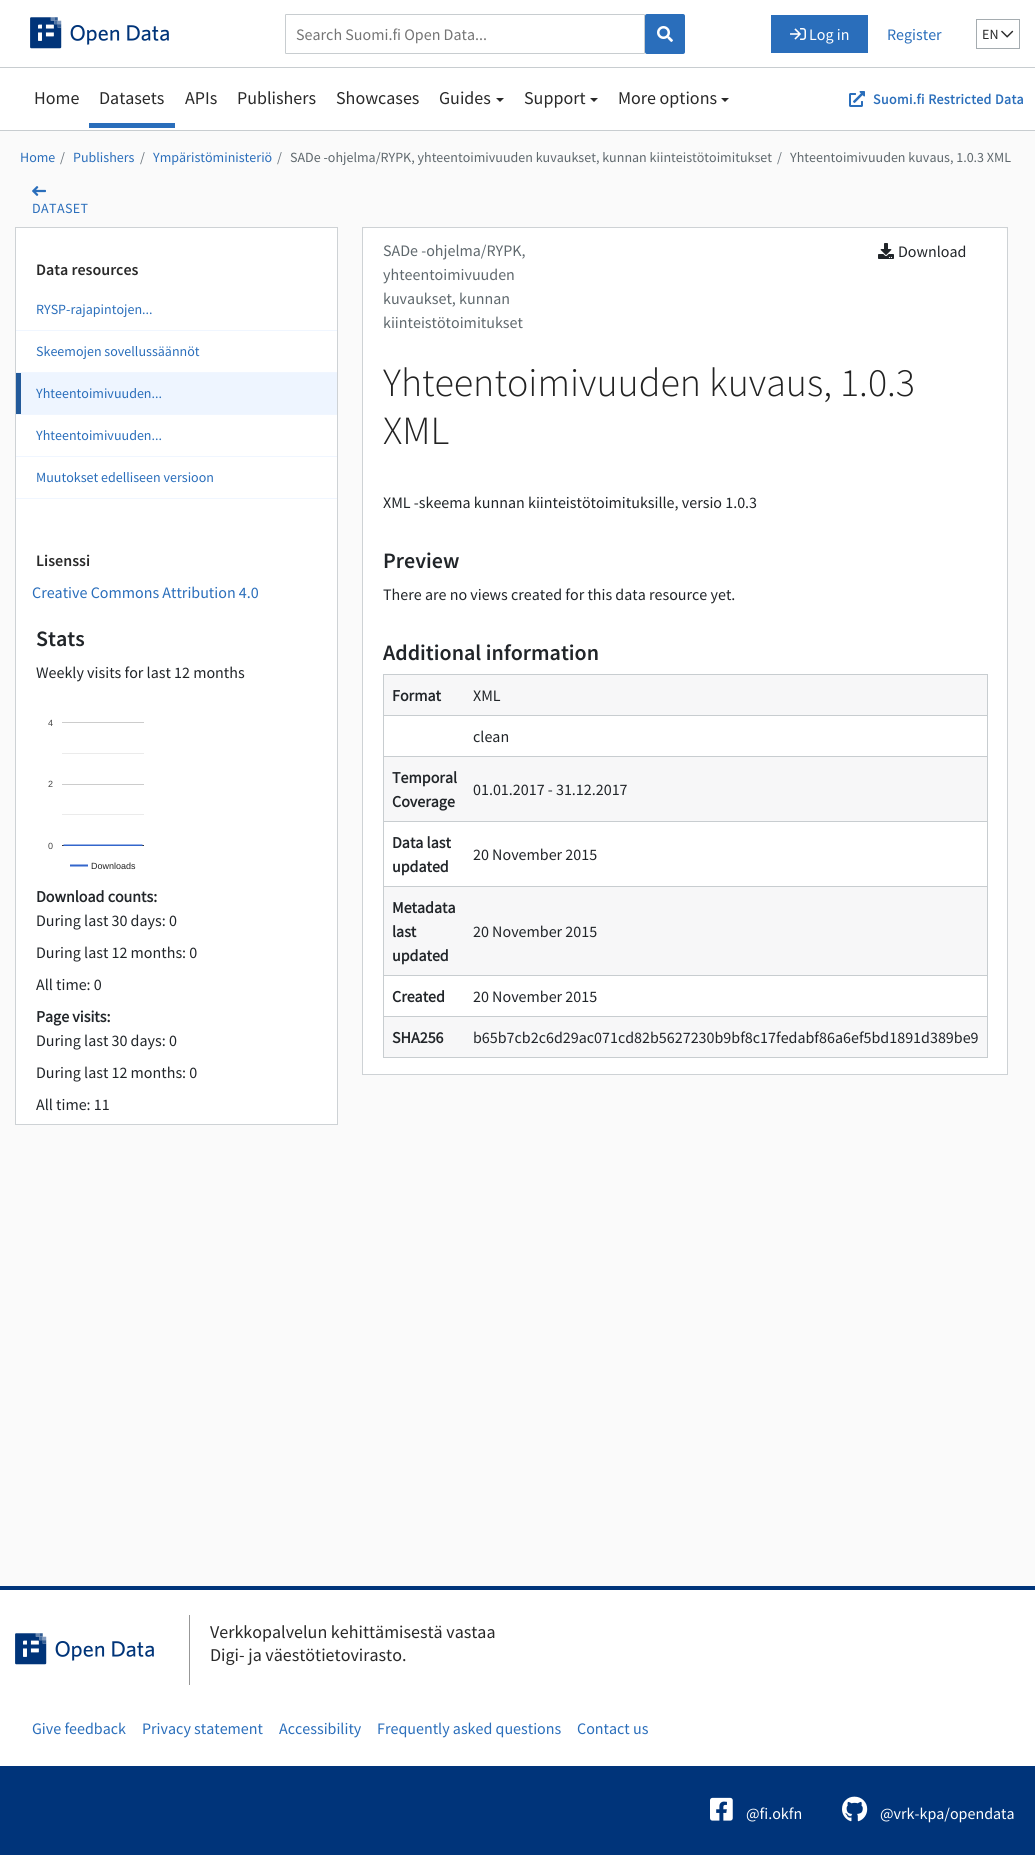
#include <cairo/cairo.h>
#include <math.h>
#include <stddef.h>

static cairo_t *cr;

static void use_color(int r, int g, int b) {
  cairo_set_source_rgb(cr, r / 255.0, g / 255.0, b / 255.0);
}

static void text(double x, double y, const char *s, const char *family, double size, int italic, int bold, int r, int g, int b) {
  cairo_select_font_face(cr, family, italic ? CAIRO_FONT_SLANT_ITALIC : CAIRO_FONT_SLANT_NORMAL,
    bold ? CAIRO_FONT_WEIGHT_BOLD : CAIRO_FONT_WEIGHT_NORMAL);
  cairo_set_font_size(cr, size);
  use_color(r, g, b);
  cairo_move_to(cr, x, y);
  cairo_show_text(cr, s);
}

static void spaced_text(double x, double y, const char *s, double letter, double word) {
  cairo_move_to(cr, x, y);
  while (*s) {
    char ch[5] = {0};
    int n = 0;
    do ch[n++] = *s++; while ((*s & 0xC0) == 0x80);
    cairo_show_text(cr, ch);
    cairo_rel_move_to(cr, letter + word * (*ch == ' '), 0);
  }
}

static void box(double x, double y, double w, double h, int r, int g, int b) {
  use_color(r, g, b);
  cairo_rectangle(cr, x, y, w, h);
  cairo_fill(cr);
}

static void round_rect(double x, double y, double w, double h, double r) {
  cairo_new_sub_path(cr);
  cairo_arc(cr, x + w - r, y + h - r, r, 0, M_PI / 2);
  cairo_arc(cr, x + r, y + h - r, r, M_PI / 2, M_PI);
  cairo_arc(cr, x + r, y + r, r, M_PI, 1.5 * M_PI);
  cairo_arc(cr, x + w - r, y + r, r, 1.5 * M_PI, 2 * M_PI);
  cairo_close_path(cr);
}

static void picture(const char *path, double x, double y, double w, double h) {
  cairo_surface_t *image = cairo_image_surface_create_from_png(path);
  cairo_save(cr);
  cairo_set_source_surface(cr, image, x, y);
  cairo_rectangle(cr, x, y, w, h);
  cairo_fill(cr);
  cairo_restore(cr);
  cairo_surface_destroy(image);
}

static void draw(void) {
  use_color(250, 250, 250);
  cairo_paint(cr);
  box(0, 0, 1035, 67, 255, 255, 255);
  picture("img_01.png", 30, 17, 139, 32);
  round_rect(285.5, 14.5, 359, 39, 0.5);
  use_color(200, 205, 208);
  cairo_set_line_width(cr, 1);
  cairo_stroke(cr);
  use_color(42, 110, 187);
  round_rect(645, 14, 40, 40, 2);
  cairo_fill(cr);
  picture("img_02.png", 657, 26, 16, 16);
  box(771, 15, 97, 38, 42, 110, 187);
  picture("img_03.png", 790, 28, 16, 12);
  cairo_rectangle(cr, 976.5, 19.5, 43, 29);
  use_color(165, 172, 176);
  cairo_stroke(cr);
  picture("img_04.png", 1001, 30, 13, 8);
  box(0, 68, 1035, 62, 255, 255, 255);
  box(0, 67, 1035, 1, 200, 205, 208);
  box(0, 130, 1035, 1, 200, 205, 208);
  box(89, 123, 86, 5, 42, 110, 187);
  use_color(41, 41, 41);
  cairo_new_path(cr);
  cairo_move_to(cr, 496, 98);
  cairo_line_to(cr, 504, 98);
  cairo_line_to(cr, 500, 102);
  cairo_close_path(cr);
  cairo_fill(cr);
  cairo_new_path(cr);
  cairo_move_to(cr, 590, 98);
  cairo_line_to(cr, 598, 98);
  cairo_line_to(cr, 594, 102);
  cairo_close_path(cr);
  cairo_fill(cr);
  cairo_new_path(cr);
  cairo_move_to(cr, 721, 98);
  cairo_line_to(cr, 729, 98);
  cairo_line_to(cr, 725, 102);
  cairo_close_path(cr);
  cairo_fill(cr);
  picture("img_05.png", 849, 91, 16, 16);
  picture("img_06.png", 32, 186, 14, 10);
  use_color(255, 255, 255);
  cairo_rectangle(cr, 15.5, 227.5, 322, 897);
  cairo_fill_preserve(cr);
  use_color(206, 210, 213);
  cairo_stroke(cr);
  box(16, 330, 321, 1, 240, 246, 255);
  box(16, 372, 321, 1, 240, 246, 255);
  box(21, 373, 316, 41, 238, 245, 255);
  box(16, 414, 321, 1, 240, 246, 255);
  box(16, 373, 5, 41, 35, 90, 154);
  box(16, 456, 321, 1, 240, 246, 255);
  box(16, 498, 321, 1, 240, 246, 255);
  box(62, 722, 82, 1, 204, 204, 204);
  box(62, 784, 82, 1, 204, 204, 204);
  box(62, 814, 82, 1, 235, 235, 235);
  box(62, 753, 82, 1, 235, 235, 235);
  box(62, 845, 82, 1, 51, 51, 51);
  cairo_save(cr);
  cairo_rectangle(cr, 62, 722, 82, 124);
  cairo_clip(cr);
  cairo_new_path(cr);
  cairo_move_to(cr, 63.5, 845.5);
  cairo_line_to(cr, 142.5, 845.5);
  use_color(51, 102, 204);
  cairo_set_line_width(cr, 2);
  cairo_stroke(cr);
  cairo_restore(cr);
  cairo_new_path(cr);
  cairo_move_to(cr, 70, 865.5);
  cairo_line_to(cr, 88, 865.5);
  use_color(51, 102, 204);
  cairo_set_line_width(cr, 2);
  cairo_stroke(cr);
  cairo_rectangle(cr, 362.5, 227.5, 645, 847);
  use_color(206, 210, 213);
  cairo_set_line_width(cr, 1);
  cairo_stroke(cr);
  use_color(255, 255, 255);
  cairo_new_path(cr);
  cairo_move_to(cr, 366, 228);
  cairo_line_to(cr, 1004, 228);
  cairo_curve_to(cr, 1005.5, 228, 1007, 229.5, 1007, 231);
  cairo_line_to(cr, 1007, 1074);
  cairo_line_to(cr, 363, 1074);
  cairo_line_to(cr, 363, 231);
  cairo_curve_to(cr, 363, 229.5, 364.5, 228, 366, 228);
  cairo_close_path(cr);
  cairo_fill(cr);
  picture("img_07.png", 878, 243, 16, 16);
  box(384, 675, 603, 40, 247, 247, 248);
  box(383, 674, 605, 1, 200, 205, 208);
  box(383, 715, 605, 1, 200, 205, 208);
  box(383, 756, 605, 1, 200, 205, 208);
  box(383, 821, 605, 1, 200, 205, 208);
  box(383, 886, 605, 1, 200, 205, 208);
  box(383, 975, 605, 1, 200, 205, 208);
  box(383, 1016, 605, 1, 200, 205, 208);
  box(987, 1016, 1, 42, 200, 205, 208);
  box(987, 975, 1, 42, 200, 205, 208);
  box(987, 886, 1, 90, 200, 205, 208);
  box(987, 821, 1, 66, 200, 205, 208);
  box(987, 756, 1, 66, 200, 205, 208);
  box(987, 715, 1, 42, 200, 205, 208);
  box(987, 674, 1, 42, 200, 205, 208);
  box(383, 1057, 605, 1, 200, 205, 208);
  box(383, 1016, 1, 42, 200, 205, 208);
  box(383, 975, 1, 42, 200, 205, 208);
  box(383, 886, 1, 90, 200, 205, 208);
  box(383, 821, 1, 66, 200, 205, 208);
  box(383, 756, 1, 66, 200, 205, 208);
  box(383, 715, 1, 42, 200, 205, 208);
  box(383, 674, 1, 42, 200, 205, 208);
  box(384, 757, 603, 64, 247, 247, 248);
  box(384, 887, 603, 88, 247, 247, 248);
  box(384, 1017, 603, 40, 247, 247, 248);
  box(0, 1586, 1035, 4, 0, 52, 122);
  box(0, 1590, 1035, 176, 255, 255, 255);
  picture("img_01.png", 15, 1633, 139, 32);
  box(189, 1615, 1, 70, 151, 151, 151);
  box(0, 1766, 1035, 89, 0, 52, 122);
  picture("img_08.png", 710, 1797, 23, 24);
  picture("img_09.png", 842, 1796, 26, 26);
  text(296, 40, "Search Suomi.fi Open Data...", "Source Sans Pro", 16, 0, 0, 117, 117, 117);
  text(809, 40, "Log in", "Source Sans Pro", 16, 0, 0, 255, 255, 255);
  text(887, 40, "Register", "Source Sans Pro", 16, 0, 0, 42, 110, 187);
  text(982, 39, "EN", "Source Sans Pro", 14, 0, 0, 41, 41, 41);
  text(34, 104, "Home", "Source Sans Pro", 18, 0, 0, 41, 41, 41);
  text(99, 104, "Datasets", "Source Sans Pro", 18, 0, 0, 41, 41, 41);
  text(185, 104, "APIs", "Source Sans Pro", 18, 0, 0, 41, 41, 41);
  text(237, 104, "Publishers", "Source Sans Pro", 18, 0, 0, 41, 41, 41);
  text(336, 104, "Showcases", "Source Sans Pro", 18, 0, 0, 41, 41, 41);
  text(439, 104, "Guides", "Source Sans Pro", 18, 0, 0, 41, 41, 41);
  text(524, 104, "Support", "Source Sans Pro", 18, 0, 0, 41, 41, 41);
  text(618, 104, "More options", "Source Sans Pro", 18, 0, 0, 41, 41, 41);
  cairo_select_font_face(cr, "Source Sans Pro", CAIRO_FONT_SLANT_NORMAL, CAIRO_FONT_WEIGHT_BOLD);
  cairo_set_font_size(cr, 14);
  use_color(42, 110, 187);
  spaced_text(873, 104, "Suomi.fi Restricted Data", 0.4, 0);
  text(20, 162, "Home", "Source Sans Pro", 14, 0, 0, 42, 110, 187);
  text(60, 162, "/", "Source Sans Pro", 14, 0, 0, 108, 117, 125);
  text(73, 162, "Publishers", "Source Sans Pro", 14, 0, 0, 42, 110, 187);
  text(140, 162, "/", "Source Sans Pro", 14, 0, 0, 108, 117, 125);
  text(153, 162, "Ympäristöministeriö", "Source Sans Pro", 14, 0, 0, 42, 110, 187);
  text(277, 162, "/", "Source Sans Pro", 14, 0, 0, 108, 117, 125);
  text(290, 162, "SADe -ohjelma/RYPK, yhteentoimivuuden kuvaukset, kunnan kiinteistötoimitukset", "Source Sans Pro", 14, 0, 0, 95, 104, 109);
  text(777, 162, "/", "Source Sans Pro", 14, 0, 0, 108, 117, 125);
  text(790, 162, "Yhteentoimivuuden kuvaus, 1.0.3 XML", "Source Sans Pro", 14, 0, 0, 95, 104, 109);
  use_color(42, 110, 187);
  spaced_text(32, 213, "DATASET", 0.4, 0);
  text(36, 275, "Data resources", "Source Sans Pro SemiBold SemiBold", 16, 0, 0, 41, 41, 41);
  text(36, 314, "RYSP-rajapintojen...", "Source Sans Pro", 14, 0, 0, 42, 110, 187);
  text(36, 356, "Skeemojen sovellussäännöt", "Source Sans Pro", 14, 0, 0, 42, 110, 187);
  text(36, 398, "Yhteentoimivuuden...", "Source Sans Pro", 14, 0, 0, 42, 110, 187);
  text(36, 440, "Yhteentoimivuuden...", "Source Sans Pro", 14, 0, 0, 42, 110, 187);
  text(36, 482, "Muutokset edelliseen versioon", "Source Sans Pro", 14, 0, 0, 42, 110, 187);
  text(36, 566, "Lisenssi", "Source Sans Pro SemiBold SemiBold", 16, 0, 0, 41, 41, 41);
  text(32, 598, "Creative Commons Attribution 4.0", "Source Sans Pro", 16, 0, 0, 42, 110, 187);
  text(36, 646, "Stats", "Source Sans Pro SemiBold SemiBold", 22, 0, 0, 33, 37, 41);
  text(36, 678, "Weekly visits for last 12 months", "Source Sans Pro", 16, 0, 0, 33, 37, 41);
  text(48, 726, "4", "Liberation Sans", 9, 0, 0, 68, 68, 68);
  text(48, 787, "2", "Liberation Sans", 9, 0, 0, 68, 68, 68);
  text(48, 849, "0", "Liberation Sans", 9, 0, 0, 68, 68, 68);
  text(91, 869, "Downloads", "Liberation Sans", 9, 0, 0, 34, 34, 34);
  text(36, 902, "Download counts:", "Source Sans Pro", 16, 0, 1, 33, 37, 41);
  text(36, 926, "During last 30 days: 0", "Source Sans Pro", 16, 0, 0, 33, 37, 41);
  text(36, 958, "During last 12 months: 0", "Source Sans Pro", 16, 0, 0, 33, 37, 41);
  text(36, 990, "All time: 0", "Source Sans Pro", 16, 0, 0, 33, 37, 41);
  text(36, 1022, "Page visits:", "Source Sans Pro", 16, 0, 1, 33, 37, 41);
  text(36, 1046, "During last 30 days: 0", "Source Sans Pro", 16, 0, 0, 33, 37, 41);
  text(36, 1078, "During last 12 months: 0", "Source Sans Pro", 16, 0, 0, 33, 37, 41);
  text(36, 1110, "All time: 11", "Source Sans Pro", 16, 0, 0, 33, 37, 41);
  text(383, 256, "SADe -ohjelma/RYPK,", "Source Sans Pro", 16, 0, 0, 95, 104, 109);
  text(383, 280, "yhteentoimivuuden", "Source Sans Pro", 16, 0, 0, 95, 104, 109);
  text(383, 304, "kuvaukset, kunnan", "Source Sans Pro", 16, 0, 0, 95, 104, 109);
  text(383, 328, "kiinteistötoimitukset", "Source Sans Pro", 16, 0, 0, 95, 104, 109);
  text(898, 257, "Download", "Source Sans Pro", 16, 0, 0, 33, 37, 41);
  text(383, 396, "Yhteentoimivuuden kuvaus, 1.0.3", "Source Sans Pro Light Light", 40, 0, 0, 34, 34, 34);
  text(383, 444, "XML", "Source Sans Pro Light Light", 40, 0, 0, 34, 34, 34);
  text(383, 508, "XML -skeema kunnan kiinteistötoimituksille, versio 1.0.3", "Source Sans Pro", 16, 0, 0, 33, 37, 41);
  text(383, 568, "Preview", "Source Sans Pro SemiBold SemiBold", 22, 0, 0, 33, 37, 41);
  text(383, 600, "There are no views created for this data resource yet.", "Source Sans Pro", 16, 0, 0, 33, 37, 41);
  text(383, 660, "Additional information", "Source Sans Pro SemiBold SemiBold", 22, 0, 0, 33, 37, 41);
  text(392, 701, "Format", "Source Sans Pro", 16, 0, 1, 33, 37, 41);
  text(473, 701, "XML", "Source Sans Pro", 16, 0, 0, 33, 37, 41);
  text(473, 742, "clean", "Source Sans Pro", 16, 0, 0, 33, 37, 41);
  text(392, 783, "Temporal", "Source Sans Pro", 16, 0, 1, 33, 37, 41);
  text(392, 807, "Coverage", "Source Sans Pro", 16, 0, 1, 33, 37, 41);
  text(473, 795, "01.01.2017 - 31.12.2017", "Source Sans Pro", 16, 0, 0, 33, 37, 41);
  text(392, 848, "Data last", "Source Sans Pro", 16, 0, 1, 33, 37, 41);
  text(392, 872, "updated", "Source Sans Pro", 16, 0, 1, 33, 37, 41);
  text(473, 860, "20 November 2015", "Source Sans Pro", 16, 0, 0, 33, 37, 41);
  text(392, 913, "Metadata", "Source Sans Pro", 16, 0, 1, 33, 37, 41);
  text(392, 937, "last", "Source Sans Pro", 16, 0, 1, 33, 37, 41);
  text(392, 961, "updated", "Source Sans Pro", 16, 0, 1, 33, 37, 41);
  text(473, 937, "20 November 2015", "Source Sans Pro", 16, 0, 0, 33, 37, 41);
  text(392, 1002, "Created", "Source Sans Pro", 16, 0, 1, 33, 37, 41);
  text(473, 1002, "20 November 2015", "Source Sans Pro", 16, 0, 0, 33, 37, 41);
  text(392, 1043, "SHA256", "Source Sans Pro", 16, 0, 1, 33, 37, 41);
  text(473, 1043, "b65b7cb2c6d29ac071cd82b5627230b9bf8c17fedabf86a6ef5bd1891d389be9", "Source Sans Pro", 16, 0, 0, 33, 37, 41);
  text(210, 1638, "Verkkopalvelun kehittämisestä vastaa", "Source Sans Pro", 18, 0, 0, 41, 41, 41);
  text(210, 1661, "Digi- ja väestötietovirasto.", "Source Sans Pro", 18, 0, 0, 41, 41, 41);
  text(32, 1734, "Give feedback", "Source Sans Pro", 16, 0, 0, 42, 110, 187);
  text(142, 1734, "Privacy statement", "Source Sans Pro", 16, 0, 0, 42, 110, 187);
  text(279, 1734, "Accessibility", "Source Sans Pro", 16, 0, 0, 42, 110, 187);
  text(377, 1734, "Frequently asked questions", "Source Sans Pro", 16, 0, 0, 42, 110, 187);
  text(577, 1734, "Contact us", "Source Sans Pro", 16, 0, 0, 42, 110, 187);
  text(746, 1819, "@fi.okfn", "Source Sans Pro", 16, 0, 0, 255, 255, 255);
  text(880, 1819, "@vrk-kpa/opendata", "Source Sans Pro", 16, 0, 0, 255, 255, 255);
}

int main(void) {
  cairo_surface_t *surface = cairo_image_surface_create(CAIRO_FORMAT_RGB24, 1035, 1855);
  cr = cairo_create(surface);
  cairo_font_options_t *options = cairo_font_options_create();
  cairo_font_options_set_hint_metrics(options, CAIRO_HINT_METRICS_OFF);
  cairo_font_options_set_hint_style(options, CAIRO_HINT_STYLE_NONE);
  cairo_set_font_options(cr, options);
  cairo_set_miter_limit(cr, 4);
  draw();
  cairo_surface_write_to_png(surface, "out.png");
  cairo_font_options_destroy(options);
  cairo_destroy(cr);
  cairo_surface_destroy(surface);
  return 0;
}
